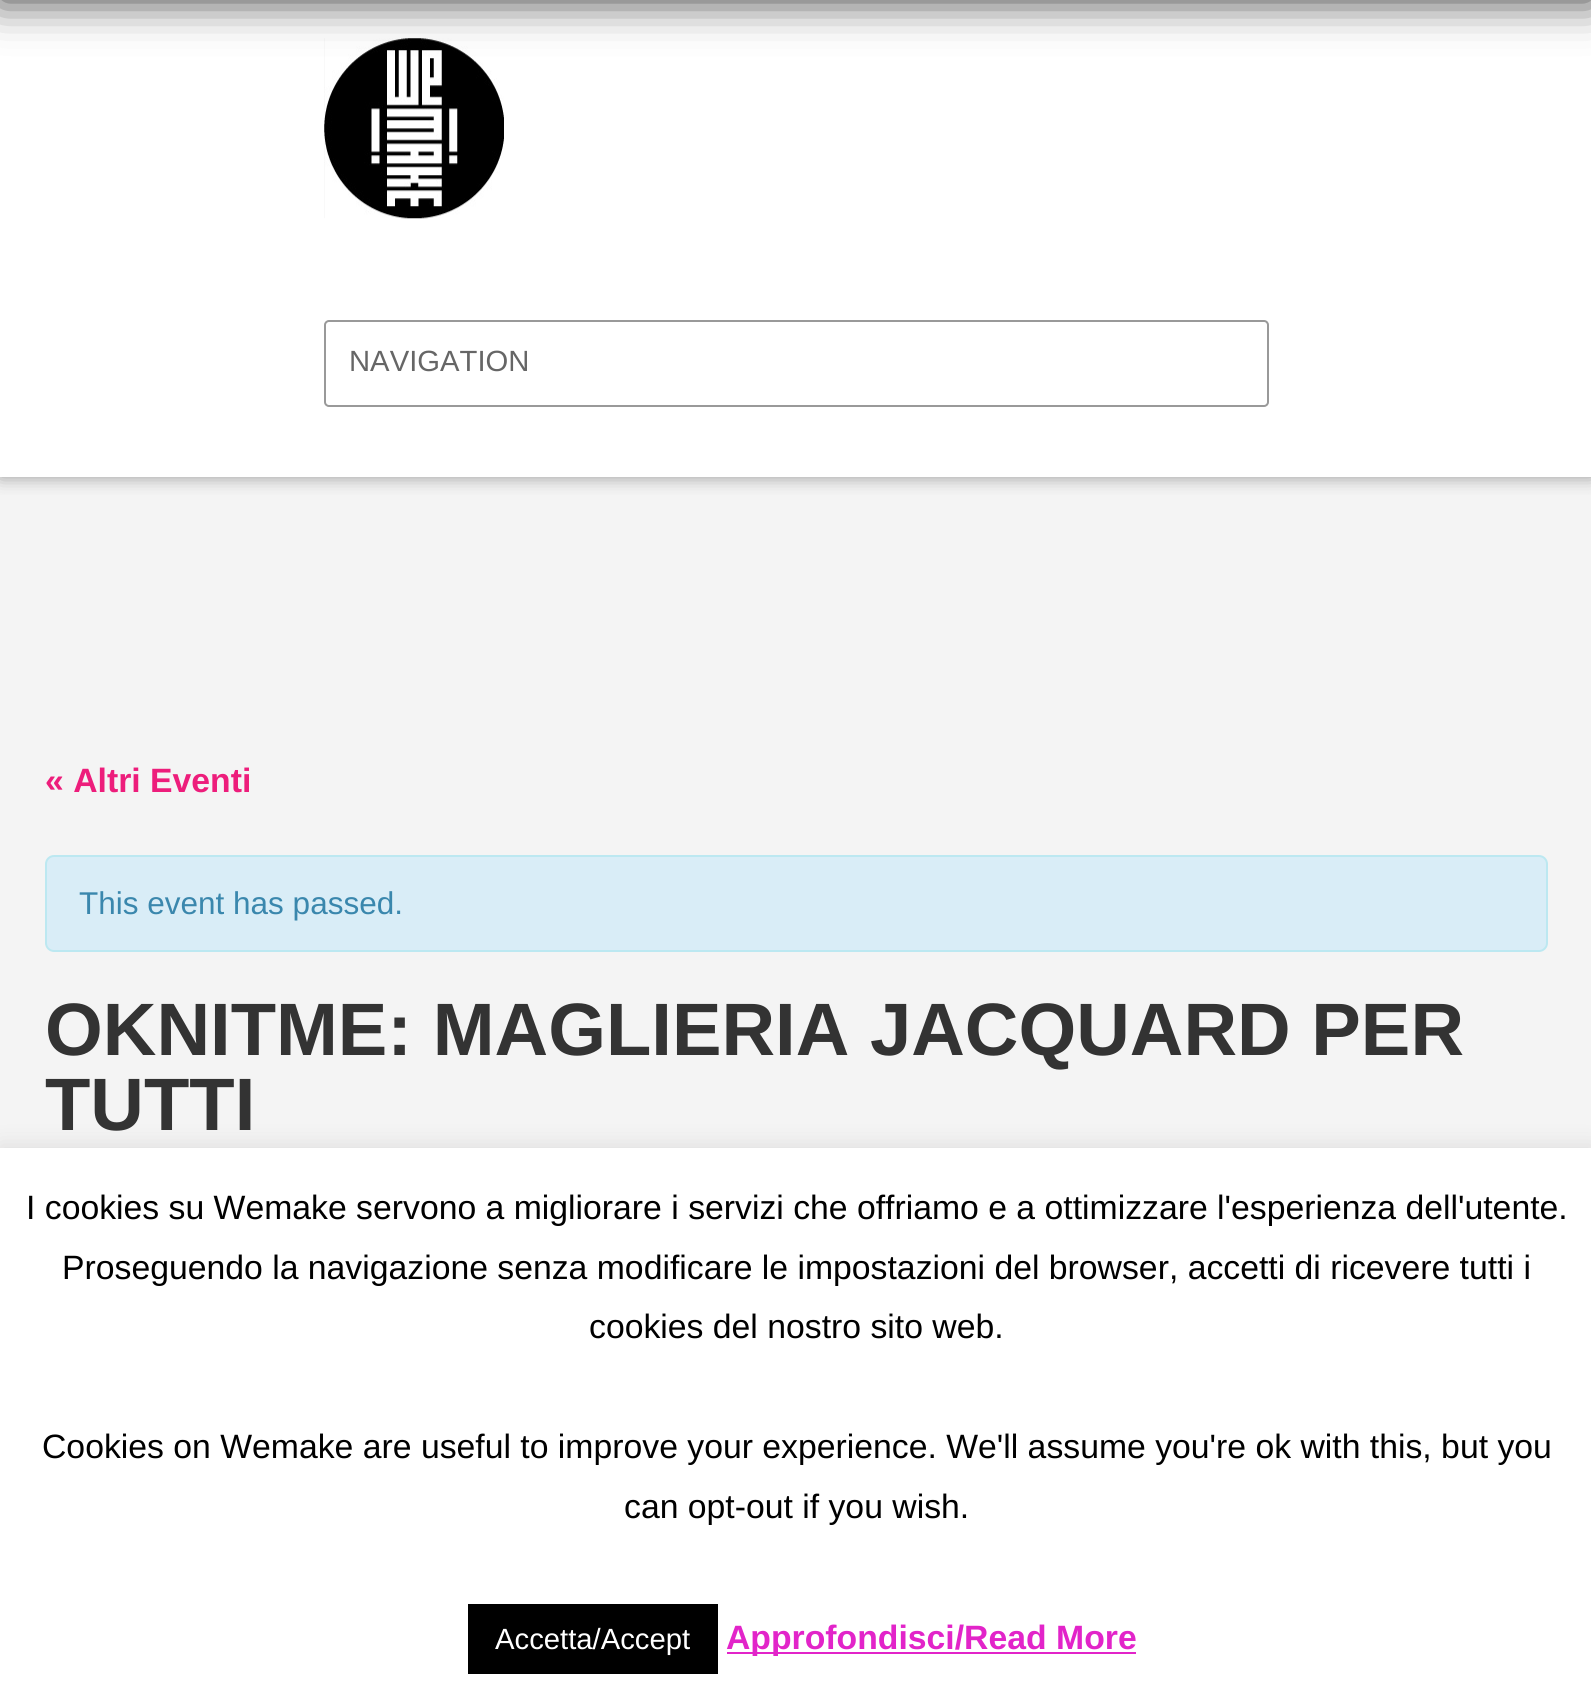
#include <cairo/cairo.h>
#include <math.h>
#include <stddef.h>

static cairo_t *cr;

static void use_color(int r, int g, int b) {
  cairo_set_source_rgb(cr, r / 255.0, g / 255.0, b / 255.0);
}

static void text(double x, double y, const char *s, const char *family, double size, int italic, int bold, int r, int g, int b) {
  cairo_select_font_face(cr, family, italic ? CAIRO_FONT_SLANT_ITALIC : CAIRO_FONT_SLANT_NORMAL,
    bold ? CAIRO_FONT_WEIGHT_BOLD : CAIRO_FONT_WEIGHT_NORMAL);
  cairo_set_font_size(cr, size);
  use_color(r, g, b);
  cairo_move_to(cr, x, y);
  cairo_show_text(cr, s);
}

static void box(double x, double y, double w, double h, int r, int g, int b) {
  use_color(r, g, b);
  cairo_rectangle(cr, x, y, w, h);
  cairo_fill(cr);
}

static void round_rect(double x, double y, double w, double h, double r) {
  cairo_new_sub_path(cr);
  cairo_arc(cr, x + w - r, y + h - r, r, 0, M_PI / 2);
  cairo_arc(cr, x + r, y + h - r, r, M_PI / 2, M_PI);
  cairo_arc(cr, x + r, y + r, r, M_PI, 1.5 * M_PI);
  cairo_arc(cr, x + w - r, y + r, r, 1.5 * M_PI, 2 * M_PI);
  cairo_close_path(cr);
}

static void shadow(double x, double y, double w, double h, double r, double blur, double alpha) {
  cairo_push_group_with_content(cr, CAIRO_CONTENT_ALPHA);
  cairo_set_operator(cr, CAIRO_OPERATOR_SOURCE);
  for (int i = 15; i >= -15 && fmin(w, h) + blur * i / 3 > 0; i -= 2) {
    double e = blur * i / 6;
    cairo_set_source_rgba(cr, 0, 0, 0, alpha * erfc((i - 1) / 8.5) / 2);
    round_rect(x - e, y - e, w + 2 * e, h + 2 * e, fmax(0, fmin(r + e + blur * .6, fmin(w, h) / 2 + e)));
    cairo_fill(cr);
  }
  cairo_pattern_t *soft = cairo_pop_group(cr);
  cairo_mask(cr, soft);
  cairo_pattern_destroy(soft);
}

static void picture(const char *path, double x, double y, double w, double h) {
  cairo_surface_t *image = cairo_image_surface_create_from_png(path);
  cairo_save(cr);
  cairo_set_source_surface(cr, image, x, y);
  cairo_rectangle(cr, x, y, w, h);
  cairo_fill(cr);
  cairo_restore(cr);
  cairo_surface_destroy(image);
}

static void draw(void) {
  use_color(255, 255, 255);
  cairo_paint(cr);
  box(0, 477, 1591, 671, 244, 244, 244);
  cairo_save(cr);
  cairo_rectangle(cr, 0, 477, 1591, 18);
  cairo_clip(cr);
  use_color(153, 153, 153);
  shadow(0, 0, 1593, 477, 0, 9, 1);
  cairo_restore(cr);
  picture("img_01.png", 324, 38, 180, 181);
  use_color(0, 0, 0);
  shadow(0, -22, 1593, 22, 0, 22.5, 0.8);
  round_rect(325, 321, 943, 85, 4);
  use_color(153, 153, 153);
  cairo_stroke(cr);
  use_color(217, 237, 247);
  round_rect(46, 856, 1501, 95, 8);
  cairo_fill_preserve(cr);
  use_color(188, 232, 241);
  cairo_stroke(cr);
  use_color(172, 171, 171);
  shadow(0, 1145, 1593, 554, 0, 11, 0.3);
  box(0, 1148, 1591, 552, 255, 255, 255);
  box(468, 1604, 250, 70, 0, 0, 0);
  box(727, 1652, 409, 2, 226, 36, 201);
  text(349, 371, "NAVIGATION", "Liberation Sans", 29.25, 0, 0, 102, 102, 102);
  text(45, 792, "« Altri Eventi", "Liberation Sans", 33.75, 0, 1, 237, 29, 123);
  text(79, 914, "This event has passed.", "Liberation Sans", 31.5, 0, 0, 58, 135, 173);
  text(45, 1055, "OKNITME: MAGLIERIA JACQUARD PER", "Liberation Sans", 74.25, 0, 1, 51, 51, 51);
  text(45, 1130, "TUTTI", "Liberation Sans", 74.25, 0, 1, 51, 51, 51);
  text(26, 1219, "I cookies su Wemake servono a migliorare i servizi che offriamo e a ottimizzare l'esperienza dell'utente.", "Liberation Sans", 33.75, 0, 0, 0, 0, 0);
  text(62, 1279, "Proseguendo la navigazione senza modificare le impostazioni del browser, accetti di ricevere tutti i", "Liberation Sans", 33.75, 0, 0, 0, 0, 0);
  text(589, 1338, "cookies del nostro sito web.", "Liberation Sans", 33.75, 0, 0, 0, 0, 0);
  text(42, 1458, "Cookies on Wemake are useful to improve your experience. We'll assume you're ok with this, but you", "Liberation Sans", 33.75, 0, 0, 0, 0, 0);
  text(624, 1518, "can opt-out if you wish.", "Liberation Sans", 33.75, 0, 0, 0, 0, 0);
  text(495, 1649, "Accetta/Accept", "Liberation Sans", 29.25, 0, 0, 255, 255, 255);
  text(726, 1649, "Approfondisci/Read More", "Liberation Sans", 33.75, 0, 1, 226, 36, 201);
}

int main(void) {
  cairo_surface_t *surface = cairo_image_surface_create(CAIRO_FORMAT_RGB24, 1591, 1700);
  cr = cairo_create(surface);
  cairo_font_options_t *options = cairo_font_options_create();
  cairo_font_options_set_hint_metrics(options, CAIRO_HINT_METRICS_OFF);
  cairo_font_options_set_hint_style(options, CAIRO_HINT_STYLE_NONE);
  cairo_set_font_options(cr, options);
  cairo_set_miter_limit(cr, 4);
  draw();
  cairo_surface_write_to_png(surface, "out.png");
  cairo_font_options_destroy(options);
  cairo_destroy(cr);
  cairo_surface_destroy(surface);
  return 0;
}
